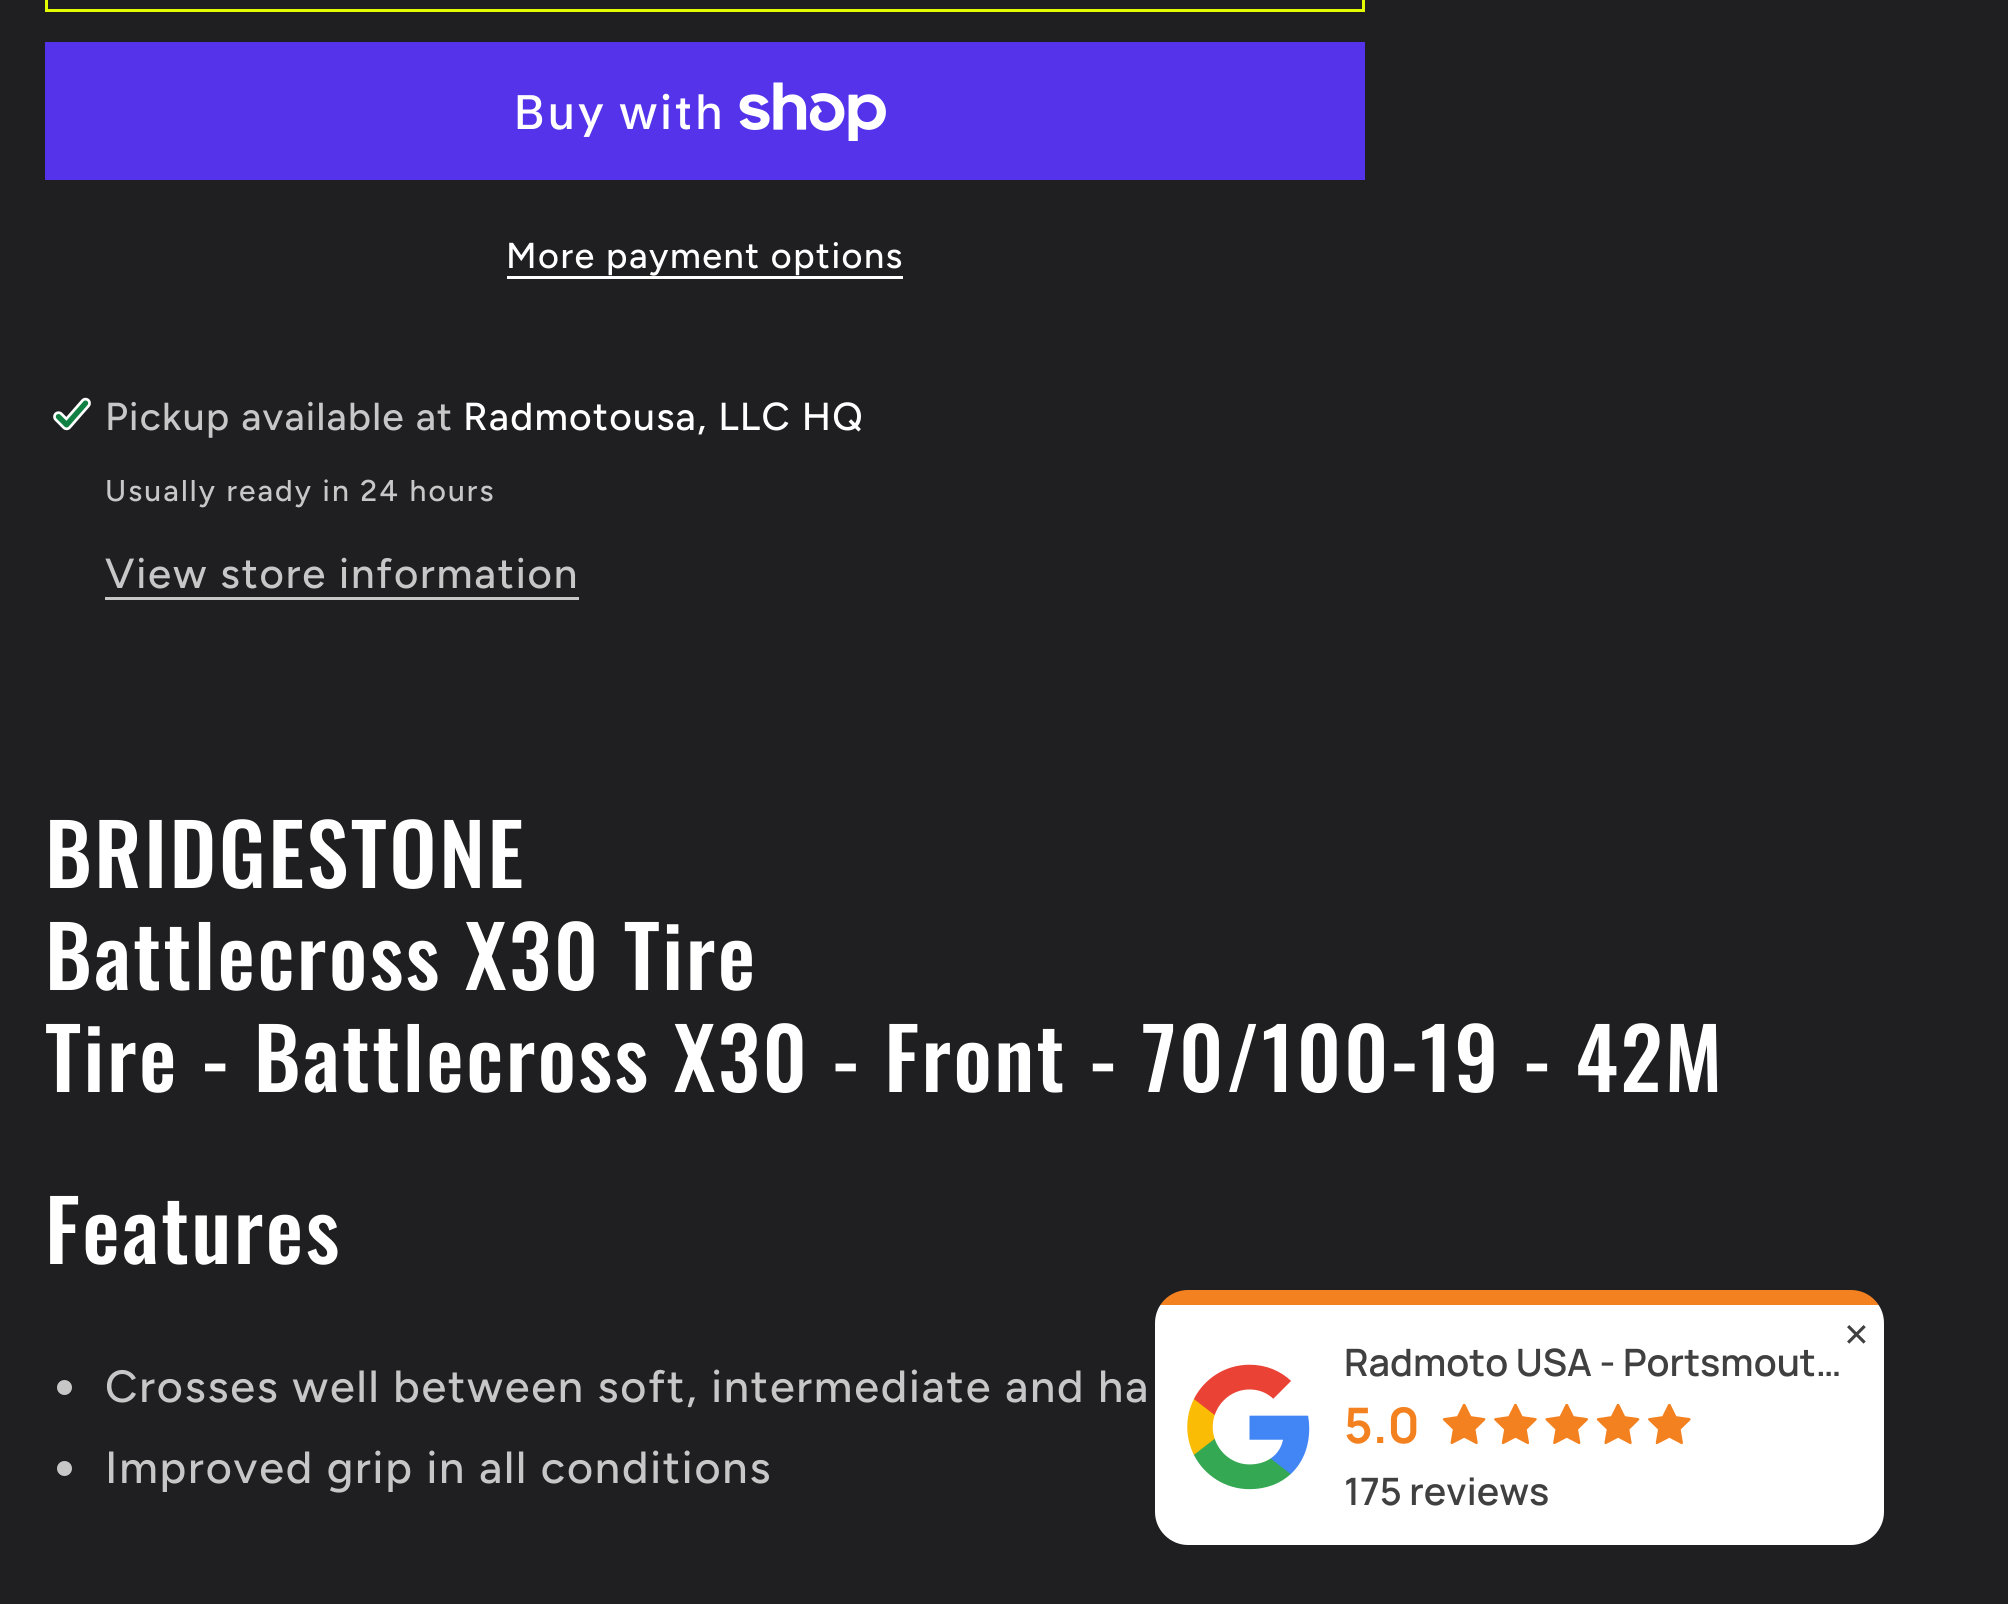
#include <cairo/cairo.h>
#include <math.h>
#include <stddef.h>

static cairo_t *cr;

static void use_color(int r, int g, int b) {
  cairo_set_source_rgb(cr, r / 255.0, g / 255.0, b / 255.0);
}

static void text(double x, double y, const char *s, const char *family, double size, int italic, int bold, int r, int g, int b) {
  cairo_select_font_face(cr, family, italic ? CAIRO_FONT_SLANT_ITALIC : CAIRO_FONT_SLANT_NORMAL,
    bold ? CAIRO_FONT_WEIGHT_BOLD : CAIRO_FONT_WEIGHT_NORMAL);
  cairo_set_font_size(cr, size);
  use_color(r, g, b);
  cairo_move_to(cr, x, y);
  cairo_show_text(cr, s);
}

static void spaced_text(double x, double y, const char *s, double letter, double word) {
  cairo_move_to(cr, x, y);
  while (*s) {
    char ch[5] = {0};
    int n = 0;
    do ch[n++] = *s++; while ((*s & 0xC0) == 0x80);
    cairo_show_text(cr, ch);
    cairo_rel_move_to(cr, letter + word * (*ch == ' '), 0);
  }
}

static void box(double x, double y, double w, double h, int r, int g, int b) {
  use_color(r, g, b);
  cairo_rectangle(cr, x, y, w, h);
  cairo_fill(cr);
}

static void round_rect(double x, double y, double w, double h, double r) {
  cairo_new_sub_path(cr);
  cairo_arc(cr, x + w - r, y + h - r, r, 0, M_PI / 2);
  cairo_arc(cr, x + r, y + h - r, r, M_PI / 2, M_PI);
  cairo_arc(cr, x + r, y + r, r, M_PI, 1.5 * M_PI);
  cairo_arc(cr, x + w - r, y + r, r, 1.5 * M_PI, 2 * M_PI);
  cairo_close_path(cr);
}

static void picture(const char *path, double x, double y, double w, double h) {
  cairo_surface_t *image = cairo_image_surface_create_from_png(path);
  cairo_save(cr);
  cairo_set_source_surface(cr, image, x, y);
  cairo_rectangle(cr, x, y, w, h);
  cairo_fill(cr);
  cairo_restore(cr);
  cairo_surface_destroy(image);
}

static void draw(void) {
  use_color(31, 31, 33);
  cairo_paint(cr);
  cairo_rectangle(cr, 46.5, -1.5, 1317, 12);
  use_color(227, 252, 2);
  cairo_set_line_width(cr, 3);
  cairo_stroke(cr);
  box(45, 42, 1320, 138, 84, 51, 235);
  picture("img_01.png", 739, 82, 147, 59);
  box(507, 276, 396, 3, 255, 255, 255);
  picture("img_02.png", 53, 397, 38, 34);
  box(105, 597, 474, 3, 199, 199, 200);
  cairo_arc(cr, 64.5, 1387.5, 7.5, 0, 2 * M_PI);
  cairo_fill(cr);
  cairo_arc(cr, 64.5, 1468.5, 7.5, 0, 2 * M_PI);
  cairo_fill(cr);
  cairo_save(cr);
  round_rect(1155, 1290, 729, 255, 33);
  cairo_clip(cr);
  box(1160, 1290, 719, 15, 244, 129, 32);
  use_color(255, 255, 255);
  cairo_new_path(cr);
  cairo_move_to(cr, 1155, 1305);
  cairo_line_to(cr, 1884, 1305);
  cairo_line_to(cr, 1884, 1512);
  cairo_curve_to(cr, 1884, 1530, 1869, 1545, 1851, 1545);
  cairo_line_to(cr, 1188, 1545);
  cairo_curve_to(cr, 1170, 1545, 1155, 1530, 1155, 1512);
  cairo_close_path(cr);
  cairo_fill(cr);
  cairo_restore(cr);
  picture("img_03.png", 1187, 1364, 123, 126);
  picture("img_04.png", 1442, 1404, 44, 41);
  picture("img_05.png", 1494, 1404, 43, 41);
  picture("img_06.png", 1545, 1404, 43, 41);
  picture("img_07.png", 1596, 1404, 44, 41);
  picture("img_08.png", 1648, 1404, 43, 41);
  cairo_select_font_face(cr, "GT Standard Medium", CAIRO_FONT_SLANT_NORMAL, CAIRO_FONT_WEIGHT_NORMAL);
  cairo_set_font_size(cr, 48);
  use_color(255, 255, 255);
  spaced_text(513, 129, "Buy with", 1.8, 0);
  cairo_select_font_face(cr, "Figtree Medium", CAIRO_FONT_SLANT_NORMAL, CAIRO_FONT_WEIGHT_NORMAL);
  cairo_set_font_size(cr, 36);
  spaced_text(506, 268, "More payment options", 1.5, 0);
  cairo_set_font_size(cr, 39);
  use_color(199, 199, 200);
  spaced_text(105, 430, "Pickup available at", 1.25, 0);
  use_color(255, 255, 255);
  spaced_text(463, 430, "Radmotousa, LLC HQ", 1.25, 0);
  cairo_set_font_size(cr, 30);
  use_color(199, 199, 200);
  spaced_text(105, 501, "Usually ready in 24 hours", 2.1, 0);
  cairo_set_font_size(cr, 42);
  spaced_text(105, 588, "View store information", 1.8, 0);
  cairo_select_font_face(cr, "Oswald Medium", CAIRO_FONT_SLANT_NORMAL, CAIRO_FONT_WEIGHT_NORMAL);
  cairo_set_font_size(cr, 84);
  use_color(255, 255, 255);
  spaced_text(45, 888, "BRIDGESTONE", 2.5, 0);
  spaced_text(45, 990, "Battlecross X30 Tire", 2.5, 0);
  spaced_text(45, 1092, "Tire - Battlecross X30 - Front - 70/100-19 - 42M", 2.5, 0);
  spaced_text(45, 1264, "Features", 2.5, 0);
  cairo_select_font_face(cr, "Figtree Medium", CAIRO_FONT_SLANT_NORMAL, CAIRO_FONT_WEIGHT_NORMAL);
  cairo_set_font_size(cr, 45);
  use_color(199, 199, 200);
  spaced_text(105, 1402, "Crosses well between soft, intermediate and ha", 1.8, 0);
  spaced_text(105, 1483, "Improved grip in all conditions", 1.8, 0);
  text(1843, 1346, "✕", "DejaVu Sans", 32, 0, 0, 64, 64, 64);
  text(1344, 1376, "Radmoto USA - Portsmout…", "Manrope SemiBold", 37.75, 0, 0, 64, 64, 64);
  text(1344, 1443, "5.0", "Manrope", 49, 0, 1, 244, 129, 32);
  text(1344, 1505, "175 reviews", "Manrope SemiBold", 37.75, 0, 0, 64, 64, 64);
}

int main(void) {
  cairo_surface_t *surface = cairo_image_surface_create(CAIRO_FORMAT_RGB24, 2008, 1604);
  cr = cairo_create(surface);
  cairo_font_options_t *options = cairo_font_options_create();
  cairo_font_options_set_hint_metrics(options, CAIRO_HINT_METRICS_OFF);
  cairo_font_options_set_hint_style(options, CAIRO_HINT_STYLE_NONE);
  cairo_set_font_options(cr, options);
  cairo_set_miter_limit(cr, 4);
  draw();
  cairo_surface_write_to_png(surface, "out.png");
  cairo_font_options_destroy(options);
  cairo_destroy(cr);
  cairo_surface_destroy(surface);
  return 0;
}
